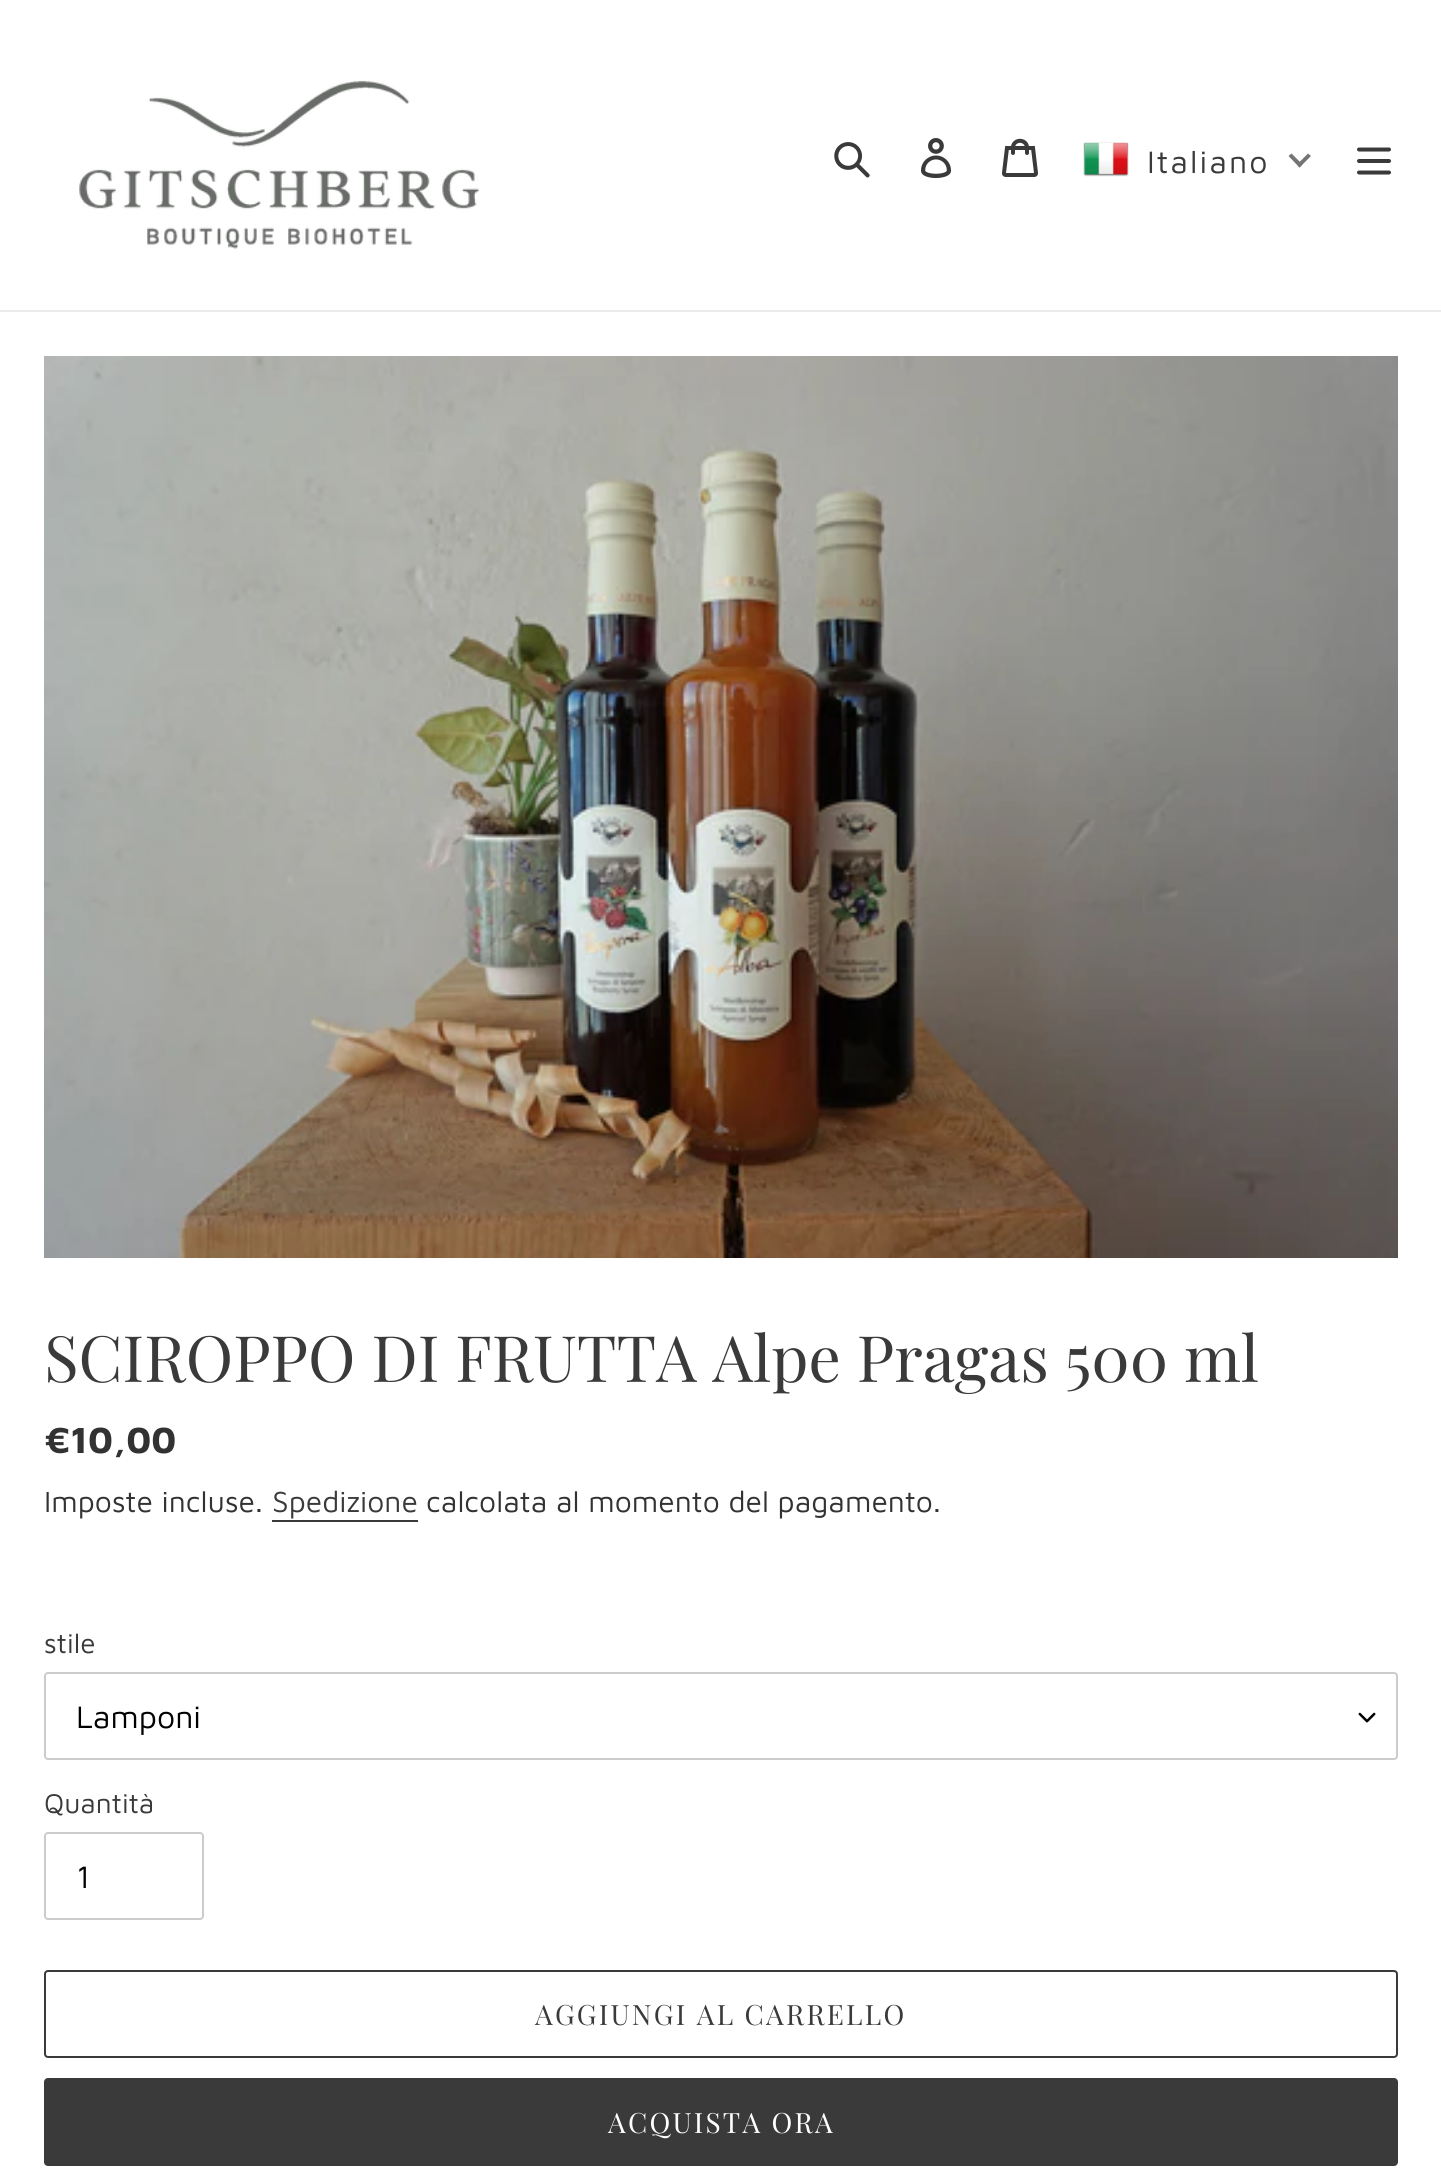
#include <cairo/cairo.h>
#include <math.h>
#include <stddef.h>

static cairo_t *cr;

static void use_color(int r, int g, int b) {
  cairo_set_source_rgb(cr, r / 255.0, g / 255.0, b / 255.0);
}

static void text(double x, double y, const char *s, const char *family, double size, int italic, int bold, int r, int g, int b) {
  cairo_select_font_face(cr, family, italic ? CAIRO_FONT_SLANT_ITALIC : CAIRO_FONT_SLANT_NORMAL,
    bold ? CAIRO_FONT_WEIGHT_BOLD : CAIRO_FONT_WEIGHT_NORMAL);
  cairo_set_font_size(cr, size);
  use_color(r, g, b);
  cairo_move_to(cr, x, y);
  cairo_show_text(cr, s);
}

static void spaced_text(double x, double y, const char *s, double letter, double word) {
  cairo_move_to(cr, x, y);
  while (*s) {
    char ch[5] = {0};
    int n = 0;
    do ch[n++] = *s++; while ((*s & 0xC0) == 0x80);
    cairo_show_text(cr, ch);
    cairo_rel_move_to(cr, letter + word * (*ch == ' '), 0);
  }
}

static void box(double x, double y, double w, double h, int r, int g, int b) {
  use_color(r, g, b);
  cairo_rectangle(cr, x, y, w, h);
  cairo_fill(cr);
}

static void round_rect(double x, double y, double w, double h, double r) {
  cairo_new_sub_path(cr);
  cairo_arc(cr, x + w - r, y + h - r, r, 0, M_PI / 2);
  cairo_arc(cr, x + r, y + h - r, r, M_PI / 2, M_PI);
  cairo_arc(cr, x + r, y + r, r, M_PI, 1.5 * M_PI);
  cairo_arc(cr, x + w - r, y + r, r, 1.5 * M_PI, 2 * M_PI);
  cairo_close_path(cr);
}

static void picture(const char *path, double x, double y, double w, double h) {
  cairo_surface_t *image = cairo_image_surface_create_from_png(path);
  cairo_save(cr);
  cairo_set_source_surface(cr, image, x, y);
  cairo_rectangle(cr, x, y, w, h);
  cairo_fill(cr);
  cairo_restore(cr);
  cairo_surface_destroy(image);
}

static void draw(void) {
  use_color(255, 255, 255);
  cairo_paint(cr);
  box(0, 310, 1441, 2, 235, 235, 235);
  picture("img_01.png", 79, 80, 400, 169);
  picture("img_02.png", 834, 142, 36, 36);
  picture("img_03.png", 921, 138, 31, 40);
  picture("img_04.png", 1002, 138, 36, 39);
  picture("img_05.png", 1083, 142, 46, 35);
  use_color(116, 116, 116);
  cairo_new_path(cr);
  cairo_move_to(cr, 1308, 153.5);
  cairo_line_to(cr, 1311, 156);
  cairo_line_to(cr, 1299.5, 167.5);
  cairo_line_to(cr, 1297, 164.5);
  cairo_close_path(cr);
  cairo_fill(cr);
  cairo_new_path(cr);
  cairo_move_to(cr, 1291.5, 153.5);
  cairo_line_to(cr, 1302.5, 164.5);
  cairo_line_to(cr, 1299.5, 167.5);
  cairo_line_to(cr, 1288.5, 156);
  cairo_close_path(cr);
  cairo_fill(cr);
  picture("img_06.png", 1357, 147, 34, 28);
  picture("img_07.png", 44, 356, 1354, 902);
  box(272, 1520, 146, 2, 58, 58, 58);
  picture("img_08.png", 1358, 1712, 18, 11);
  round_rect(45, 1673, 1352, 86, 3);
  use_color(204, 204, 204);
  cairo_stroke(cr);
  round_rect(45, 1833, 158, 86, 3);
  cairo_stroke(cr);
  round_rect(45, 1971, 1352, 86, 3);
  use_color(58, 58, 58);
  cairo_stroke(cr);
  round_rect(44, 2078, 1354, 88, 4);
  cairo_fill(cr);
  cairo_select_font_face(cr, "Maven Pro", CAIRO_FONT_SLANT_NORMAL, CAIRO_FONT_WEIGHT_NORMAL);
  cairo_set_font_size(cr, 32);
  spaced_text(1147, 173, "Italiano", 2, 0);
  text(44, 1382, "SCIROPPO DI FRUTTA Alpe Pragas 500 ml", "Playfair Display", 64, 0, 0, 58, 58, 58);
  text(44, 1453, "€10,00", "Maven Pro", 37.5, 0, 1, 51, 50, 50);
  text(44, 1512, "Imposte incluse.", "Maven Pro", 30, 0, 0, 51, 50, 50);
  text(272, 1512, "Spedizione", "Maven Pro", 30, 0, 0, 58, 58, 58);
  text(426, 1512, "calcolata al momento del pagamento.", "Maven Pro", 30, 0, 0, 51, 50, 50);
  text(44, 1653, "stile", "Maven Pro", 28, 0, 0, 58, 58, 58);
  text(76, 1728, "Lamponi", "Maven Pro", 32, 0, 0, 0, 0, 0);
  text(44, 1813, "Quantità", "Maven Pro", 28, 0, 0, 58, 58, 58);
  text(76, 1888, "1", "Maven Pro", 32, 0, 0, 0, 0, 0);
  cairo_select_font_face(cr, "Playfair Display", CAIRO_FONT_SLANT_NORMAL, CAIRO_FONT_WEIGHT_NORMAL);
  cairo_set_font_size(cr, 28);
  use_color(58, 58, 58);
  spaced_text(535, 2025, "AGGIUNGI AL CARRELLO", 2.25, 0);
  use_color(255, 255, 255);
  spaced_text(608, 2133, "ACQUISTA ORA", 2.25, 0);
}

int main(void) {
  cairo_surface_t *surface = cairo_image_surface_create(CAIRO_FORMAT_RGB24, 1441, 2184);
  cr = cairo_create(surface);
  cairo_font_options_t *options = cairo_font_options_create();
  cairo_font_options_set_hint_metrics(options, CAIRO_HINT_METRICS_OFF);
  cairo_font_options_set_hint_style(options, CAIRO_HINT_STYLE_NONE);
  cairo_set_font_options(cr, options);
  cairo_set_miter_limit(cr, 4);
  draw();
  cairo_surface_write_to_png(surface, "out.png");
  cairo_font_options_destroy(options);
  cairo_destroy(cr);
  cairo_surface_destroy(surface);
  return 0;
}
